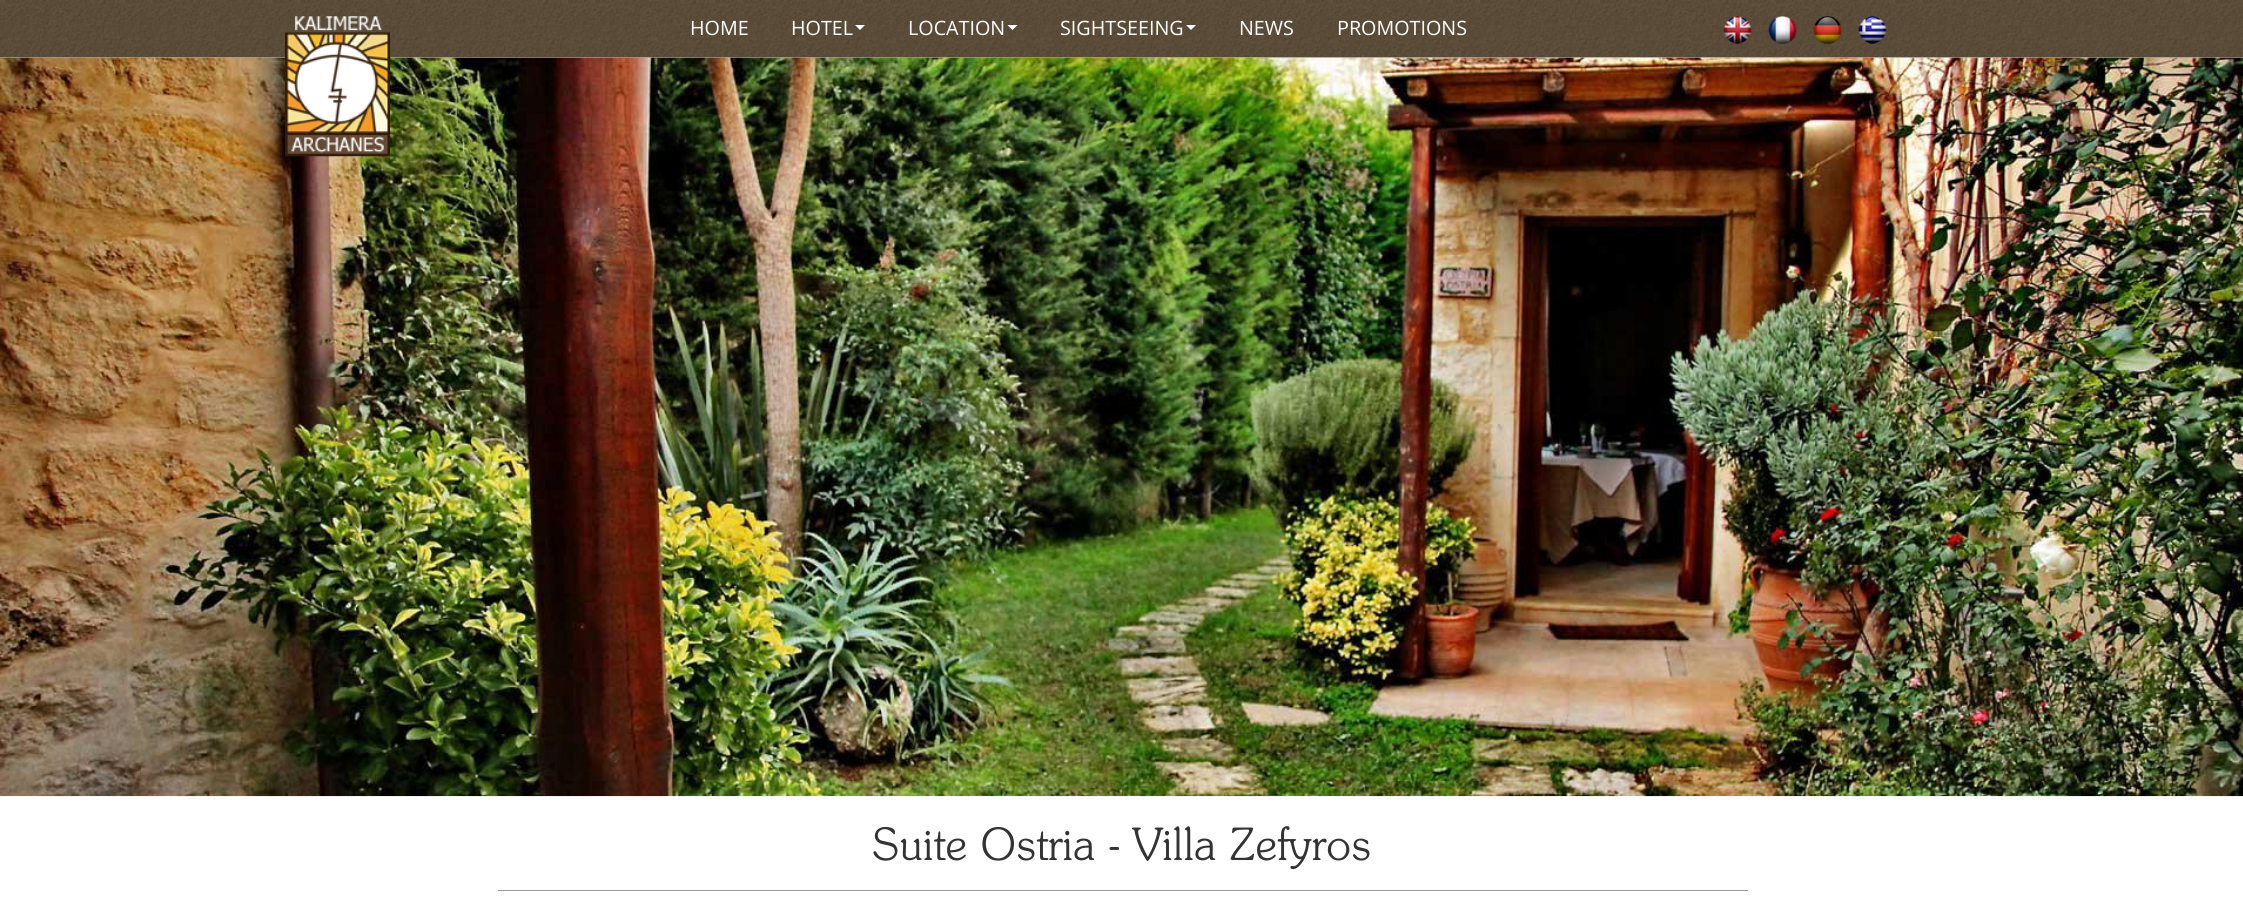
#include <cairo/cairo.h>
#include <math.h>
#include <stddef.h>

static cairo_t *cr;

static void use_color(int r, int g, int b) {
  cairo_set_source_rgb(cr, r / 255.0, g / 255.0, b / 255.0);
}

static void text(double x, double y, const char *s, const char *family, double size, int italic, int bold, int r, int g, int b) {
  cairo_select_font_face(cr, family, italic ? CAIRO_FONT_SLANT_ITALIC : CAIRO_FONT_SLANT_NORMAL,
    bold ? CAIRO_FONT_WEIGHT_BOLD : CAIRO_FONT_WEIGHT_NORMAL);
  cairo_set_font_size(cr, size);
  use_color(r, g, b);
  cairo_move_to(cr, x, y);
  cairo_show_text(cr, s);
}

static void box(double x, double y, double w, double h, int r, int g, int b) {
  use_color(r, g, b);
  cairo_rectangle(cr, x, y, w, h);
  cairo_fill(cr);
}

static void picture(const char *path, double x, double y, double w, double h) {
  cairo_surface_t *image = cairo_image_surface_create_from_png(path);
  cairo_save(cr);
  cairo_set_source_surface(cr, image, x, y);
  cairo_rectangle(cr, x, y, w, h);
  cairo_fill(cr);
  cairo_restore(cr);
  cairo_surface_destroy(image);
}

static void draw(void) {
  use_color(255, 255, 255);
  cairo_paint(cr);
  picture("img_01.png", 0, 57, 2243, 1);
  picture("img_02.png", 0, 0, 2243, 58);
  picture("img_08.png", 0, 57, 2243, 740);
  picture("img_03.png", 285, 16, 105, 141);
  use_color(255, 255, 255);
  cairo_new_path(cr);
  cairo_move_to(cr, 855, 25);
  cairo_line_to(cr, 865, 25);
  cairo_line_to(cr, 860, 30);
  cairo_close_path(cr);
  cairo_fill(cr);
  cairo_new_path(cr);
  cairo_move_to(cr, 1007.5, 25);
  cairo_line_to(cr, 1017.5, 25);
  cairo_line_to(cr, 1012.5, 30);
  cairo_close_path(cr);
  cairo_fill(cr);
  cairo_new_path(cr);
  cairo_move_to(cr, 1186, 25);
  cairo_line_to(cr, 1196, 25);
  cairo_line_to(cr, 1191, 30);
  cairo_close_path(cr);
  cairo_fill(cr);
  picture("img_04.png", 1723, 16, 29, 28);
  picture("img_05.png", 1768, 16, 29, 28);
  picture("img_06.png", 1813, 16, 29, 28);
  picture("img_07.png", 1858, 16, 29, 28);
  box(498, 890, 1250, 1, 153, 153, 153);
  text(690, 35, "HOME", "Open Sans", 19.75, 0, 0, 255, 255, 255);
  text(791, 35, "HOTEL", "Open Sans", 19.75, 0, 0, 255, 255, 255);
  text(908, 35, "LOCATION", "Open Sans", 19.75, 0, 0, 255, 255, 255);
  text(1060, 35, "SIGHTSEEING", "Open Sans", 19.75, 0, 0, 255, 255, 255);
  text(1239, 35, "NEWS", "Open Sans", 19.75, 0, 0, 255, 255, 255);
  text(1337, 35, "PROMOTIONS", "Open Sans", 19.75, 0, 0, 255, 255, 255);
  text(872, 860, "Suite Ostria - Villa Zefyros", "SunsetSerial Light", 45, 0, 0, 51, 51, 51);
}

int main(void) {
  cairo_surface_t *surface = cairo_image_surface_create(CAIRO_FORMAT_RGB24, 2243, 910);
  cr = cairo_create(surface);
  cairo_font_options_t *options = cairo_font_options_create();
  cairo_font_options_set_hint_metrics(options, CAIRO_HINT_METRICS_OFF);
  cairo_font_options_set_hint_style(options, CAIRO_HINT_STYLE_NONE);
  cairo_set_font_options(cr, options);
  cairo_set_miter_limit(cr, 4);
  draw();
  cairo_surface_write_to_png(surface, "out.png");
  cairo_font_options_destroy(options);
  cairo_destroy(cr);
  cairo_surface_destroy(surface);
  return 0;
}
